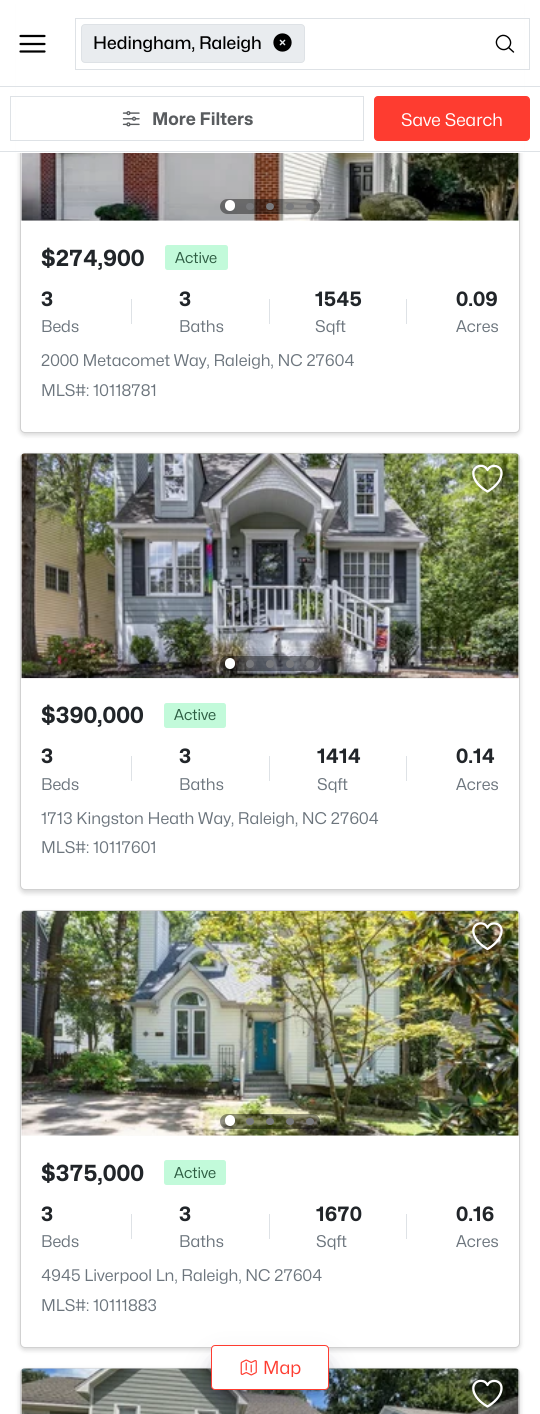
#include <cairo/cairo.h>
#include <math.h>
#include <stddef.h>

static cairo_t *cr;

static void use_color(int r, int g, int b) {
  cairo_set_source_rgb(cr, r / 255.0, g / 255.0, b / 255.0);
}

static void text(double x, double y, const char *s, const char *family, double size, int italic, int bold, int r, int g, int b) {
  cairo_select_font_face(cr, family, italic ? CAIRO_FONT_SLANT_ITALIC : CAIRO_FONT_SLANT_NORMAL,
    bold ? CAIRO_FONT_WEIGHT_BOLD : CAIRO_FONT_WEIGHT_NORMAL);
  cairo_set_font_size(cr, size);
  use_color(r, g, b);
  cairo_move_to(cr, x, y);
  cairo_show_text(cr, s);
}

static void box(double x, double y, double w, double h, int r, int g, int b) {
  use_color(r, g, b);
  cairo_rectangle(cr, x, y, w, h);
  cairo_fill(cr);
}

static void round_rect(double x, double y, double w, double h, double r) {
  cairo_new_sub_path(cr);
  cairo_arc(cr, x + w - r, y + h - r, r, 0, M_PI / 2);
  cairo_arc(cr, x + r, y + h - r, r, M_PI / 2, M_PI);
  cairo_arc(cr, x + r, y + r, r, M_PI, 1.5 * M_PI);
  cairo_arc(cr, x + w - r, y + r, r, 1.5 * M_PI, 2 * M_PI);
  cairo_close_path(cr);
}

static void shadow(double x, double y, double w, double h, double r, double blur, double alpha) {
  cairo_push_group_with_content(cr, CAIRO_CONTENT_ALPHA);
  cairo_set_operator(cr, CAIRO_OPERATOR_SOURCE);
  for (int i = 15; i >= -15 && fmin(w, h) + blur * i / 3 > 0; i -= 2) {
    double e = blur * i / 6;
    cairo_set_source_rgba(cr, 0, 0, 0, alpha * erfc((i - 1) / 8.5) / 2);
    round_rect(x - e, y - e, w + 2 * e, h + 2 * e, fmax(0, fmin(r + e + blur * .6, fmin(w, h) / 2 + e)));
    cairo_fill(cr);
  }
  cairo_pattern_t *soft = cairo_pop_group(cr);
  cairo_mask(cr, soft);
  cairo_pattern_destroy(soft);
}

static void picture(const char *path, double x, double y, double w, double h) {
  cairo_surface_t *image = cairo_image_surface_create_from_png(path);
  cairo_save(cr);
  cairo_set_source_surface(cr, image, x, y);
  cairo_rectangle(cr, x, y, w, h);
  cairo_fill(cr);
  cairo_restore(cr);
  cairo_surface_destroy(image);
}

static void draw(void) {
  use_color(255, 255, 255);
  cairo_paint(cr);
  use_color(0, 0, 0);
  shadow(20, -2, 500, 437, 5, 2.5, 0.16);
  use_color(255, 255, 255);
  round_rect(20, -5, 500, 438, 5);
  cairo_fill(cr);
  round_rect(20.5, -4.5, 499, 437, 4.5);
  cairo_set_source_rgba(cr, 0, 0, 0, 0.18);
  cairo_set_line_width(cr, 1);
  cairo_stroke(cr);
  box(16, 0, 508, 153, 255, 255, 255);
  box(0, 86, 540, 1, 222, 226, 230);
  cairo_new_path(cr);
  cairo_move_to(cr, 20.5, 36);
  cairo_line_to(cr, 44.5, 36);
  cairo_move_to(cr, 20.5, 44);
  cairo_line_to(cr, 44.5, 44);
  cairo_move_to(cr, 20.5, 51.5);
  cairo_line_to(cr, 44.5, 51.5);
  use_color(0, 0, 0);
  cairo_set_line_width(cr, 2.2);
  cairo_set_line_cap(cr, CAIRO_LINE_CAP_ROUND);
  cairo_set_line_join(cr, CAIRO_LINE_JOIN_ROUND);
  cairo_stroke(cr);
  cairo_rectangle(cr, 75.5, 18.5, 454, 51);
  use_color(222, 226, 230);
  cairo_set_line_width(cr, 1);
  cairo_set_line_cap(cr, CAIRO_LINE_CAP_BUTT);
  cairo_set_line_join(cr, CAIRO_LINE_JOIN_MITER);
  cairo_stroke(cr);
  use_color(233, 236, 239);
  round_rect(81.5, 24.5, 223, 38, 3.5);
  cairo_fill_preserve(cr);
  use_color(222, 226, 230);
  cairo_stroke(cr);
  picture("img_01.png", 273, 33, 19, 19);
  cairo_new_path(cr);
  cairo_move_to(cr, 513.5, 52);
  cairo_line_to(cr, 508.5, 47.5);
  cairo_move_to(cr, 508.5, 47.5);
  cairo_curve_to(cr, 515, 41, 505, 31, 498.5, 37.5);
  cairo_curve_to(cr, 492, 44, 502, 54, 508.5, 47.5);
  cairo_close_path(cr);
  use_color(0, 0, 0);
  cairo_set_line_width(cr, 1.4);
  cairo_set_line_cap(cr, CAIRO_LINE_CAP_ROUND);
  cairo_set_line_join(cr, CAIRO_LINE_JOIN_ROUND);
  cairo_stroke(cr);
  box(0, 151, 540, 1, 222, 226, 230);
  cairo_rectangle(cr, 10.5, 96.5, 353, 44);
  cairo_set_line_width(cr, 1);
  cairo_set_line_cap(cr, CAIRO_LINE_CAP_BUTT);
  cairo_set_line_join(cr, CAIRO_LINE_JOIN_MITER);
  cairo_stroke(cr);
  picture("img_02.png", 122, 111, 18, 16);
  use_color(254, 60, 48);
  round_rect(374.5, 96.5, 155, 44, 3.5);
  cairo_fill_preserve(cr);
  cairo_stroke(cr);
  box(21, 153, 498, 68, 250, 250, 250);
  picture("img_03.png", 21, 153, 498, 68);
  cairo_set_source_rgba(cr, 0, 0, 0, 0.4);
  round_rect(220, 199, 100, 15, 7.5);
  cairo_fill(cr);
  use_color(255, 255, 255);
  round_rect(225, 200, 10, 11, 5);
  cairo_fill(cr);
  use_color(120, 121, 124);
  round_rect(246, 203, 8, 7, 3.5);
  cairo_fill(cr);
  round_rect(266, 203, 8, 7, 3.5);
  cairo_fill(cr);
  round_rect(286, 203, 8, 7, 3.5);
  cairo_fill(cr);
  round_rect(306, 203, 8, 7, 3.5);
  cairo_fill(cr);
  use_color(194, 250, 218);
  round_rect(165, 245, 63, 25, 2.5);
  cairo_fill(cr);
  box(131, 299, 1, 25, 222, 226, 230);
  box(269, 299, 1, 25, 222, 226, 230);
  box(406, 299, 1, 25, 222, 226, 230);
  use_color(0, 0, 0);
  shadow(20, 455, 500, 438, 5, 2.5, 0.16);
  use_color(255, 255, 255);
  round_rect(20, 453, 500, 437, 5);
  cairo_fill(cr);
  round_rect(20.5, 453.5, 499, 436, 4.5);
  cairo_set_source_rgba(cr, 0, 0, 0, 0.18);
  cairo_stroke(cr);
  use_color(250, 250, 250);
  cairo_new_path(cr);
  cairo_move_to(cr, 25, 454);
  cairo_line_to(cr, 515, 454);
  cairo_curve_to(cr, 517, 454, 519, 456, 519, 458);
  cairo_line_to(cr, 519, 679);
  cairo_line_to(cr, 21, 679);
  cairo_line_to(cr, 21, 458);
  cairo_curve_to(cr, 21, 456, 23, 454, 25, 454);
  cairo_close_path(cr);
  cairo_fill(cr);
  picture("img_04.png", 21, 453, 498, 226);
  cairo_set_source_rgba(cr, 0, 0, 0, 0.4);
  round_rect(220, 656, 100, 15, 7.5);
  cairo_fill(cr);
  use_color(255, 255, 255);
  round_rect(225, 658, 10, 11, 5);
  cairo_fill(cr);
  use_color(120, 121, 124);
  cairo_arc(cr, 250, 664, 4, 0, 2 * M_PI);
  cairo_fill(cr);
  cairo_arc(cr, 270, 664, 4, 0, 2 * M_PI);
  cairo_fill(cr);
  cairo_arc(cr, 290, 664, 4, 0, 2 * M_PI);
  cairo_fill(cr);
  cairo_arc(cr, 310, 664, 4, 0, 2 * M_PI);
  cairo_fill(cr);
  cairo_new_path(cr);
  cairo_move_to(cr, 501.5, 473);
  cairo_curve_to(cr, 501.5, 465, 490.5, 463.5, 487.5, 470);
  cairo_curve_to(cr, 483.5, 461.5, 467.5, 466.5, 475.5, 480.5);
  cairo_curve_to(cr, 478, 485, 483, 489, 487.5, 491.5);
  cairo_curve_to(cr, 487.5, 491.5, 501.5, 484, 501.5, 473);
  cairo_close_path(cr);
  use_color(255, 255, 255);
  cairo_set_line_width(cr, 2.3);
  cairo_set_line_cap(cr, CAIRO_LINE_CAP_ROUND);
  cairo_set_line_join(cr, CAIRO_LINE_JOIN_ROUND);
  cairo_stroke(cr);
  use_color(194, 250, 218);
  round_rect(164, 703, 62, 25, 2.5);
  cairo_fill(cr);
  box(131, 756, 1, 25, 222, 226, 230);
  box(269, 756, 1, 25, 222, 226, 230);
  box(406, 756, 1, 25, 222, 226, 230);
  use_color(0, 0, 0);
  shadow(20, 913, 500, 437, 5, 2.5, 0.16);
  use_color(255, 255, 255);
  round_rect(20, 910, 500, 438, 5);
  cairo_fill(cr);
  round_rect(20.5, 910.5, 499, 437, 4.5);
  cairo_set_source_rgba(cr, 0, 0, 0, 0.18);
  cairo_set_line_width(cr, 1);
  cairo_set_line_cap(cr, CAIRO_LINE_CAP_BUTT);
  cairo_set_line_join(cr, CAIRO_LINE_JOIN_MITER);
  cairo_stroke(cr);
  use_color(250, 250, 250);
  cairo_new_path(cr);
  cairo_move_to(cr, 25, 911);
  cairo_line_to(cr, 515, 911);
  cairo_curve_to(cr, 517, 911, 519, 913, 519, 915);
  cairo_line_to(cr, 519, 1136);
  cairo_line_to(cr, 21, 1136);
  cairo_line_to(cr, 21, 915);
  cairo_curve_to(cr, 21, 913, 23, 911, 25, 911);
  cairo_close_path(cr);
  cairo_fill(cr);
  picture("img_05.png", 21, 911, 498, 225);
  cairo_set_source_rgba(cr, 0, 0, 0, 0.4);
  round_rect(220, 1114, 100, 15, 7.5);
  cairo_fill(cr);
  use_color(255, 255, 255);
  round_rect(225, 1115, 10, 11, 5);
  cairo_fill(cr);
  use_color(120, 121, 124);
  round_rect(246, 1118, 8, 7, 3.5);
  cairo_fill(cr);
  round_rect(266, 1118, 8, 7, 3.5);
  cairo_fill(cr);
  round_rect(286, 1118, 8, 7, 3.5);
  cairo_fill(cr);
  round_rect(306, 1118, 8, 7, 3.5);
  cairo_fill(cr);
  cairo_new_path(cr);
  cairo_move_to(cr, 501.5, 930.5);
  cairo_curve_to(cr, 501.5, 922.5, 490.5, 921, 487.5, 927.5);
  cairo_curve_to(cr, 483.5, 919, 467.5, 924, 475.5, 938);
  cairo_curve_to(cr, 478, 942.5, 483, 946.5, 487.5, 949);
  cairo_curve_to(cr, 487.5, 949, 501.5, 941.5, 501.5, 930.5);
  cairo_close_path(cr);
  use_color(255, 255, 255);
  cairo_set_line_width(cr, 2.3);
  cairo_set_line_cap(cr, CAIRO_LINE_CAP_ROUND);
  cairo_set_line_join(cr, CAIRO_LINE_JOIN_ROUND);
  cairo_stroke(cr);
  use_color(194, 250, 218);
  round_rect(164, 1160, 62, 25, 2.5);
  cairo_fill(cr);
  box(131, 1214, 1, 25, 222, 226, 230);
  box(269, 1214, 1, 25, 222, 226, 230);
  box(406, 1214, 1, 25, 222, 226, 230);
  use_color(0, 0, 0);
  shadow(20, 1370, 500, 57, 5, 2.5, 0.16);
  round_rect(20.5, 1368.5, 499, 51, 4.5);
  use_color(210, 210, 210);
  cairo_set_line_width(cr, 1);
  cairo_set_line_cap(cr, CAIRO_LINE_CAP_BUTT);
  cairo_set_line_join(cr, CAIRO_LINE_JOIN_MITER);
  cairo_stroke(cr);
  use_color(250, 250, 250);
  cairo_new_path(cr);
  cairo_move_to(cr, 25, 1369);
  cairo_line_to(cr, 515, 1369);
  cairo_curve_to(cr, 517, 1369, 519, 1371, 519, 1373);
  cairo_line_to(cr, 519, 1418);
  cairo_line_to(cr, 21, 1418);
  cairo_line_to(cr, 21, 1373);
  cairo_curve_to(cr, 21, 1371, 23, 1369, 25, 1369);
  cairo_close_path(cr);
  cairo_fill(cr);
  picture("img_06.png", 21, 1368, 498, 46);
  cairo_new_path(cr);
  cairo_move_to(cr, 501.5, 1388);
  cairo_curve_to(cr, 501.5, 1380, 490.5, 1378.5, 487.5, 1385);
  cairo_curve_to(cr, 483.5, 1376.5, 467.5, 1381.5, 475.5, 1395.5);
  cairo_curve_to(cr, 478, 1400, 483, 1404, 487.5, 1406.5);
  cairo_curve_to(cr, 487.5, 1406.5, 501.5, 1399, 501.5, 1388);
  cairo_close_path(cr);
  use_color(255, 255, 255);
  cairo_set_line_width(cr, 2.3);
  cairo_set_line_cap(cr, CAIRO_LINE_CAP_ROUND);
  cairo_set_line_join(cr, CAIRO_LINE_JOIN_ROUND);
  cairo_stroke(cr);
  use_color(0, 0, 0);
  shadow(221, 1365, 98, 25, 0, 10, 0.3);
  use_color(50, 50, 93);
  shadow(218, 1368, 105, 32, 0, 17, 0.25);
  use_color(255, 255, 255);
  round_rect(211.5, 1345.5, 117, 44, 3.5);
  cairo_fill_preserve(cr);
  use_color(254, 60, 48);
  cairo_set_line_width(cr, 1);
  cairo_set_line_cap(cr, CAIRO_LINE_CAP_BUTT);
  cairo_set_line_join(cr, CAIRO_LINE_JOIN_MITER);
  cairo_stroke(cr);
  picture("img_07.png", 240, 1359, 17, 17);
  text(93, 49, "Hedingham, Raleigh", "Mona Sans Medium", 17.5, 0, 0, 0, 0, 0);
  text(152, 125, "More Filters", "Mona Sans", 17.5, 0, 1, 89, 92, 95);
  text(401, 126, "Save Search", "Mona Sans", 17.5, 0, 0, 255, 255, 255);
  text(41, 266, "$274,900", "Mona Sans", 22.5, 0, 1, 33, 37, 41);
  text(175, 263, "Active", "Mona Sans", 15, 0, 0, 45, 92, 66);
  text(41, 306, "3", "Mona Sans", 20, 0, 1, 33, 37, 41);
  text(41, 332, "Beds", "Mona Sans", 16.25, 0, 0, 108, 117, 125);
  text(179, 306, "3", "Mona Sans", 20, 0, 1, 33, 37, 41);
  text(179, 332, "Baths", "Mona Sans", 16.25, 0, 0, 108, 117, 125);
  text(315, 306, "1545", "Mona Sans", 20, 0, 1, 33, 37, 41);
  text(315, 332, "Sqft", "Mona Sans", 16.25, 0, 0, 108, 117, 125);
  text(456, 306, "0.09", "Mona Sans", 20, 0, 1, 33, 37, 41);
  text(456, 332, "Acres", "Mona Sans", 16.25, 0, 0, 108, 117, 125);
  text(41, 366, "2000 Metacomet Way, Raleigh, NC 27604", "Mona Sans", 16.25, 0, 0, 108, 117, 125);
  text(41, 396, "MLS#: 10118781", "Mona Sans", 16.25, 0, 0, 108, 117, 125);
  text(41, 723, "$390,000", "Mona Sans", 22.5, 0, 1, 33, 37, 41);
  text(174, 720, "Active", "Mona Sans", 15, 0, 0, 45, 92, 66);
  text(41, 763, "3", "Mona Sans", 20, 0, 1, 33, 37, 41);
  text(41, 790, "Beds", "Mona Sans", 16.25, 0, 0, 108, 117, 125);
  text(179, 763, "3", "Mona Sans", 20, 0, 1, 33, 37, 41);
  text(179, 790, "Baths", "Mona Sans", 16.25, 0, 0, 108, 117, 125);
  text(317, 763, "1414", "Mona Sans", 20, 0, 1, 33, 37, 41);
  text(317, 790, "Sqft", "Mona Sans", 16.25, 0, 0, 108, 117, 125);
  text(456, 763, "0.14", "Mona Sans", 20, 0, 1, 33, 37, 41);
  text(456, 790, "Acres", "Mona Sans", 16.25, 0, 0, 108, 117, 125);
  text(41, 824, "1713 Kingston Heath Way, Raleigh, NC 27604", "Mona Sans", 16.25, 0, 0, 108, 117, 125);
  text(41, 853, "MLS#: 10117601", "Mona Sans", 16.25, 0, 0, 108, 117, 125);
  text(41, 1181, "$375,000", "Mona Sans", 22.5, 0, 1, 33, 37, 41);
  text(174, 1178, "Active", "Mona Sans", 15, 0, 0, 45, 92, 66);
  text(41, 1221, "3", "Mona Sans", 20, 0, 1, 33, 37, 41);
  text(41, 1247, "Beds", "Mona Sans", 16.25, 0, 0, 108, 117, 125);
  text(179, 1221, "3", "Mona Sans", 20, 0, 1, 33, 37, 41);
  text(179, 1247, "Baths", "Mona Sans", 16.25, 0, 0, 108, 117, 125);
  text(316, 1221, "1670", "Mona Sans", 20, 0, 1, 33, 37, 41);
  text(316, 1247, "Sqft", "Mona Sans", 16.25, 0, 0, 108, 117, 125);
  text(456, 1221, "0.16", "Mona Sans", 20, 0, 1, 33, 37, 41);
  text(456, 1247, "Acres", "Mona Sans", 16.25, 0, 0, 108, 117, 125);
  text(41, 1281, "4945 Liverpool Ln, Raleigh, NC 27604", "Mona Sans", 16.25, 0, 0, 108, 117, 125);
  text(41, 1311, "MLS#: 10111883", "Mona Sans", 16.25, 0, 0, 108, 117, 125);
  text(263, 1374, "Map", "Mona Sans", 18, 0, 0, 254, 60, 48);
}

int main(void) {
  cairo_surface_t *surface = cairo_image_surface_create(CAIRO_FORMAT_RGB24, 540, 1414);
  cr = cairo_create(surface);
  cairo_font_options_t *options = cairo_font_options_create();
  cairo_font_options_set_hint_metrics(options, CAIRO_HINT_METRICS_OFF);
  cairo_font_options_set_hint_style(options, CAIRO_HINT_STYLE_NONE);
  cairo_set_font_options(cr, options);
  cairo_set_miter_limit(cr, 4);
  draw();
  cairo_surface_write_to_png(surface, "out.png");
  cairo_font_options_destroy(options);
  cairo_destroy(cr);
  cairo_surface_destroy(surface);
  return 0;
}
